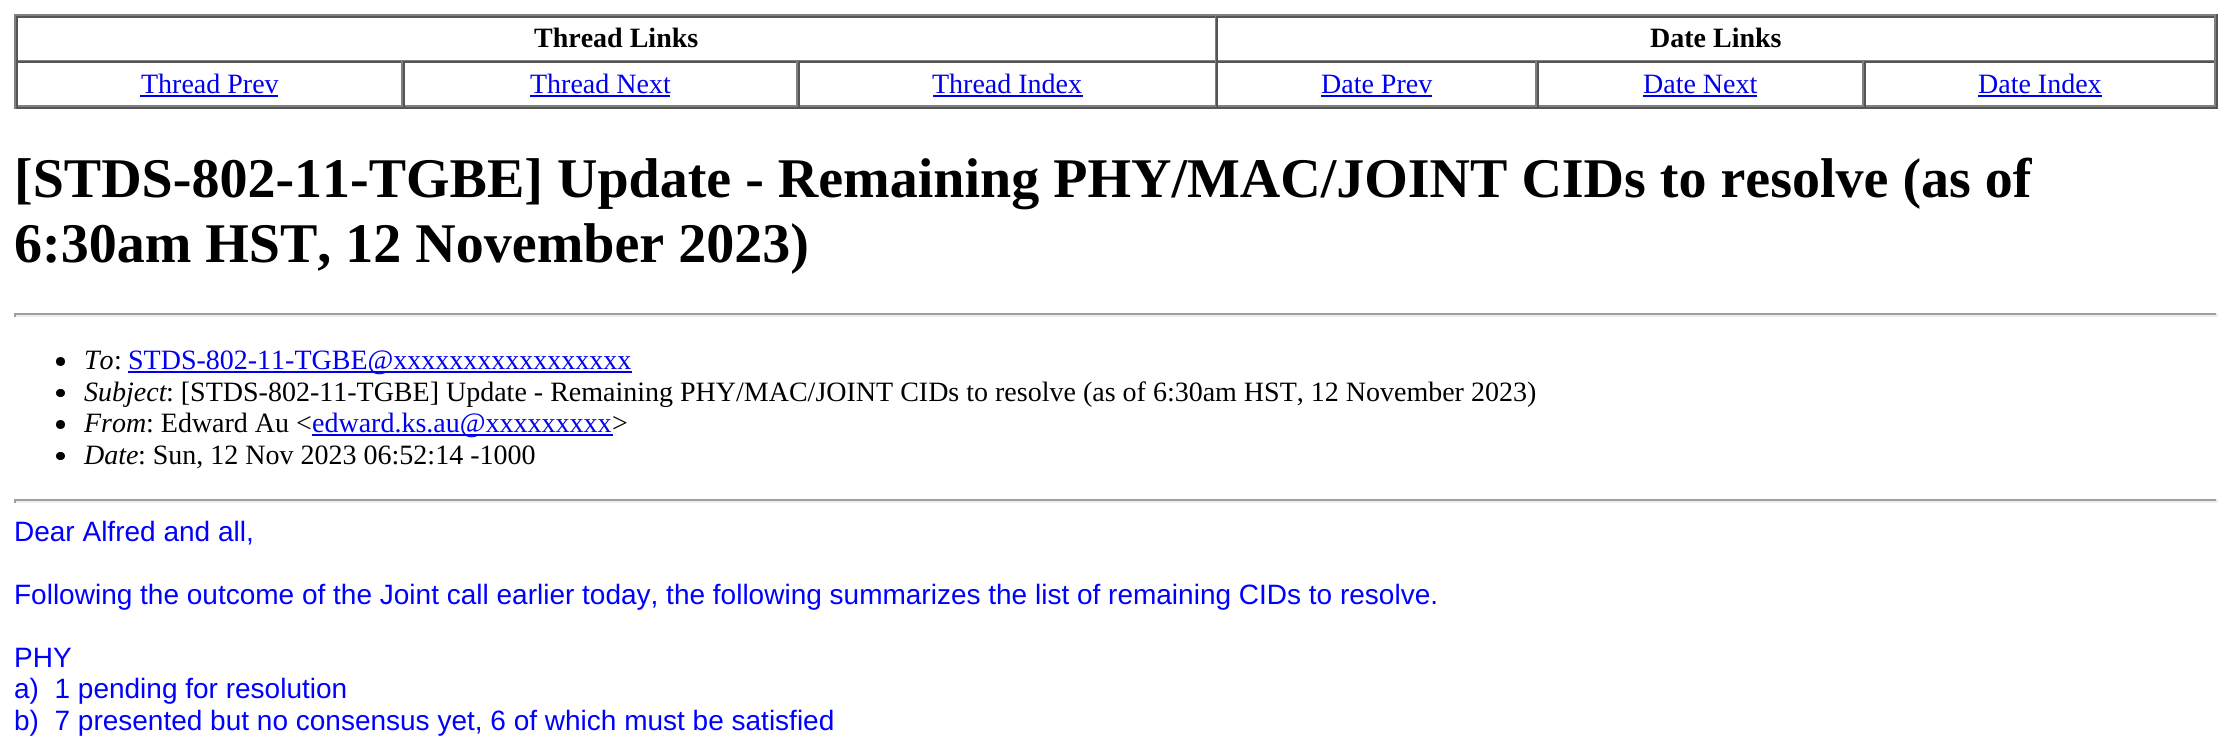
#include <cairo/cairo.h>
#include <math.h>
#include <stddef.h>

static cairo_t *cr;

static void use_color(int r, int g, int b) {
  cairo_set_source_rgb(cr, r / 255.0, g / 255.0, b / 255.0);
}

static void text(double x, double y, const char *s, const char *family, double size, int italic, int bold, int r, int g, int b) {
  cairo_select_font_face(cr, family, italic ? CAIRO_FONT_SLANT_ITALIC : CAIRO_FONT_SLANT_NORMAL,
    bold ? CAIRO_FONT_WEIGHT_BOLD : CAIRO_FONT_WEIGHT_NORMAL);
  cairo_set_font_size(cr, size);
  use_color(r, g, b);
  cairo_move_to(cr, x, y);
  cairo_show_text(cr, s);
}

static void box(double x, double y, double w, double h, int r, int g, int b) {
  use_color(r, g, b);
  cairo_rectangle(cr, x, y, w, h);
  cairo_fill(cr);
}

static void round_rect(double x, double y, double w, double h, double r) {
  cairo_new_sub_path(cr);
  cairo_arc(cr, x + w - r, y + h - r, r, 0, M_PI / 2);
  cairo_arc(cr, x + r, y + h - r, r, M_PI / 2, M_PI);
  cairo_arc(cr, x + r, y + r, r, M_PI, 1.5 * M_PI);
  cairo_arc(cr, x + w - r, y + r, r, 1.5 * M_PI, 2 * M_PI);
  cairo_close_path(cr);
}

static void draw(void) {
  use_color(255, 255, 255);
  cairo_paint(cr);
  box(14, 14, 2203, 2, 128, 128, 128);
  box(2216, 14, 2, 95, 85, 85, 85);
  box(14, 107, 2203, 2, 85, 85, 85);
  box(14, 14, 2, 95, 128, 128, 128);
  box(16, 16, 2200, 2, 85, 85, 85);
  box(1215, 16, 1, 45, 128, 128, 128);
  box(16, 60, 1200, 1, 128, 128, 128);
  box(16, 16, 2, 45, 85, 85, 85);
  box(2214, 16, 2, 45, 128, 128, 128);
  box(1216, 60, 1000, 1, 128, 128, 128);
  box(1216, 16, 2, 45, 85, 85, 85);
  box(16, 61, 2200, 2, 85, 85, 85);
  box(401, 61, 2, 46, 128, 128, 128);
  box(16, 105, 387, 2, 128, 128, 128);
  box(16, 61, 2, 46, 85, 85, 85);
  box(140, 95, 138, 2, 0, 0, 238);
  box(796, 61, 2, 46, 128, 128, 128);
  box(403, 105, 395, 2, 128, 128, 128);
  box(403, 61, 2, 46, 85, 85, 85);
  box(530, 95, 140, 2, 0, 0, 238);
  box(1215, 61, 1, 46, 128, 128, 128);
  box(798, 105, 418, 2, 128, 128, 128);
  box(798, 61, 2, 46, 85, 85, 85);
  box(933, 95, 150, 2, 0, 0, 238);
  box(1535, 61, 2, 46, 128, 128, 128);
  box(1216, 105, 321, 2, 128, 128, 128);
  box(1216, 61, 2, 46, 85, 85, 85);
  box(1321, 95, 111, 2, 0, 0, 238);
  box(1862, 61, 2, 46, 128, 128, 128);
  box(1537, 105, 327, 2, 128, 128, 128);
  box(1537, 61, 2, 46, 85, 85, 85);
  box(1643, 95, 114, 2, 0, 0, 238);
  box(2214, 61, 2, 46, 128, 128, 128);
  box(1864, 105, 352, 2, 128, 128, 128);
  box(1864, 61, 2, 46, 85, 85, 85);
  box(1978, 95, 124, 2, 0, 0, 238);
  box(14, 313, 2203, 2, 159, 159, 159);
  box(2216, 313, 2, 4, 238, 238, 238);
  box(14, 315, 2203, 2, 238, 238, 238);
  box(14, 313, 2, 4, 159, 159, 159);
  use_color(0, 0, 0);
  cairo_arc(cr, 60.5, 361.5, 4.5, 0, 2 * M_PI);
  cairo_fill(cr);
  box(128, 371, 504, 2, 0, 0, 238);
  use_color(0, 0, 0);
  round_rect(56, 389, 9, 8, 4);
  cairo_fill(cr);
  cairo_arc(cr, 60.5, 424.5, 4.5, 0, 2 * M_PI);
  cairo_fill(cr);
  box(312, 434, 301, 2, 0, 0, 238);
  use_color(0, 0, 0);
  round_rect(56, 452, 9, 8, 4);
  cairo_fill(cr);
  box(14, 499, 2203, 2, 159, 159, 159);
  box(2216, 499, 2, 4, 238, 238, 238);
  box(14, 501, 2203, 2, 238, 238, 238);
  box(14, 499, 2, 4, 159, 159, 159);
  text(534, 47, "Thread Links", "Liberation Serif", 28, 0, 1, 0, 0, 0);
  text(1650, 47, "Date Links", "Liberation Serif", 28, 0, 1, 0, 0, 0);
  text(141, 93, "Thread Prev", "Liberation Serif", 28, 0, 0, 0, 0, 238);
  text(530, 93, "Thread Next", "Liberation Serif", 28, 0, 0, 0, 0, 238);
  text(932, 93, "Thread Index", "Liberation Serif", 28, 0, 0, 0, 0, 238);
  text(1321, 93, "Date Prev", "Liberation Serif", 28, 0, 0, 0, 0, 238);
  text(1643, 93, "Date Next", "Liberation Serif", 28, 0, 0, 0, 0, 238);
  text(1978, 93, "Date Index", "Liberation Serif", 28, 0, 0, 0, 0, 238);
  text(14, 197, "[STDS-802-11-TGBE] Update - Remaining PHY/MAC/JOINT CIDs to resolve (as of", "Liberation Serif", 56, 0, 1, 0, 0, 0);
  text(14, 262, "6:30am HST, 12 November 2023)", "Liberation Serif", 56, 0, 1, 0, 0, 0);
  text(84, 369, "To", "Liberation Serif", 28, 1, 0, 0, 0, 0);
  text(114, 369, ":", "Liberation Serif", 28, 0, 0, 0, 0, 0);
  text(128, 369, "STDS-802-11-TGBE@xxxxxxxxxxxxxxxxx", "Liberation Serif", 28, 0, 0, 0, 0, 238);
  text(84, 401, "Subject", "Liberation Serif", 28, 1, 0, 0, 0, 0);
  text(166, 401, ": [STDS-802-11-TGBE] Update - Remaining PHY/MAC/JOINT CIDs to resolve (as of 6:30am HST, 12 November 2023)", "Liberation Serif", 28, 0, 0, 0, 0, 0);
  text(84, 432, "From", "Liberation Serif", 28, 1, 0, 0, 0, 0);
  text(146, 432, ": Edward Au <", "Liberation Serif", 28, 0, 0, 0, 0, 0);
  text(312, 432, "edward.ks.au@xxxxxxxxx", "Liberation Serif", 28, 0, 0, 0, 0, 238);
  text(612, 432, ">", "Liberation Serif", 28, 0, 0, 0, 0, 0);
  text(84, 464, "Date", "Liberation Serif", 28, 1, 0, 0, 0, 0);
  text(138, 464, ": Sun, 12 Nov 2023 06:52:14 -1000", "Liberation Serif", 28, 0, 0, 0, 0, 0);
  text(14, 541, "Dear Alfred and all,", "Liberation Sans", 28, 0, 0, 0, 0, 255);
  text(14, 604, "Following the outcome of the Joint call earlier today, the following summarizes the list of remaining CIDs to resolve.", "Liberation Sans", 28, 0, 0, 0, 0, 255);
  text(14, 667, "PHY", "Liberation Sans", 28, 0, 0, 0, 0, 255);
  text(14, 698, "a)  1 pending for resolution", "Liberation Sans", 28, 0, 0, 0, 0, 255);
  text(14, 730, "b)  7 presented but no consensus yet, 6 of which must be satisfied", "Liberation Sans", 28, 0, 0, 0, 0, 255);
}

int main(void) {
  cairo_surface_t *surface = cairo_image_surface_create(CAIRO_FORMAT_RGB24, 2230, 755);
  cr = cairo_create(surface);
  cairo_font_options_t *options = cairo_font_options_create();
  cairo_font_options_set_hint_metrics(options, CAIRO_HINT_METRICS_OFF);
  cairo_font_options_set_hint_style(options, CAIRO_HINT_STYLE_NONE);
  cairo_set_font_options(cr, options);
  cairo_set_miter_limit(cr, 4);
  draw();
  cairo_surface_write_to_png(surface, "out.png");
  cairo_font_options_destroy(options);
  cairo_destroy(cr);
  cairo_surface_destroy(surface);
  return 0;
}
